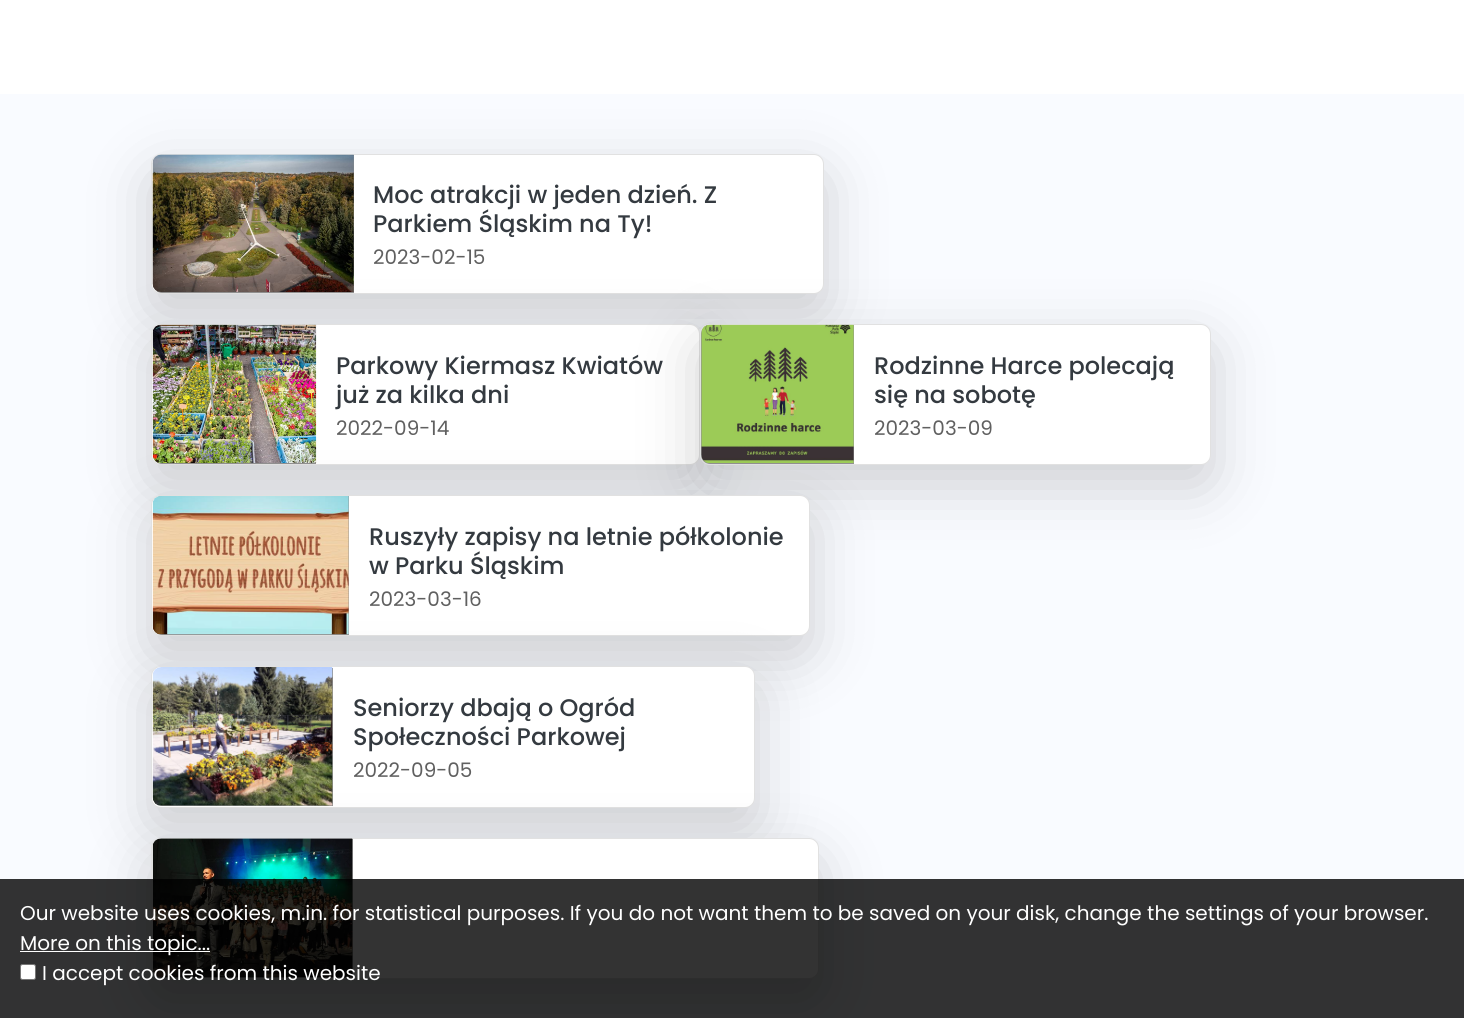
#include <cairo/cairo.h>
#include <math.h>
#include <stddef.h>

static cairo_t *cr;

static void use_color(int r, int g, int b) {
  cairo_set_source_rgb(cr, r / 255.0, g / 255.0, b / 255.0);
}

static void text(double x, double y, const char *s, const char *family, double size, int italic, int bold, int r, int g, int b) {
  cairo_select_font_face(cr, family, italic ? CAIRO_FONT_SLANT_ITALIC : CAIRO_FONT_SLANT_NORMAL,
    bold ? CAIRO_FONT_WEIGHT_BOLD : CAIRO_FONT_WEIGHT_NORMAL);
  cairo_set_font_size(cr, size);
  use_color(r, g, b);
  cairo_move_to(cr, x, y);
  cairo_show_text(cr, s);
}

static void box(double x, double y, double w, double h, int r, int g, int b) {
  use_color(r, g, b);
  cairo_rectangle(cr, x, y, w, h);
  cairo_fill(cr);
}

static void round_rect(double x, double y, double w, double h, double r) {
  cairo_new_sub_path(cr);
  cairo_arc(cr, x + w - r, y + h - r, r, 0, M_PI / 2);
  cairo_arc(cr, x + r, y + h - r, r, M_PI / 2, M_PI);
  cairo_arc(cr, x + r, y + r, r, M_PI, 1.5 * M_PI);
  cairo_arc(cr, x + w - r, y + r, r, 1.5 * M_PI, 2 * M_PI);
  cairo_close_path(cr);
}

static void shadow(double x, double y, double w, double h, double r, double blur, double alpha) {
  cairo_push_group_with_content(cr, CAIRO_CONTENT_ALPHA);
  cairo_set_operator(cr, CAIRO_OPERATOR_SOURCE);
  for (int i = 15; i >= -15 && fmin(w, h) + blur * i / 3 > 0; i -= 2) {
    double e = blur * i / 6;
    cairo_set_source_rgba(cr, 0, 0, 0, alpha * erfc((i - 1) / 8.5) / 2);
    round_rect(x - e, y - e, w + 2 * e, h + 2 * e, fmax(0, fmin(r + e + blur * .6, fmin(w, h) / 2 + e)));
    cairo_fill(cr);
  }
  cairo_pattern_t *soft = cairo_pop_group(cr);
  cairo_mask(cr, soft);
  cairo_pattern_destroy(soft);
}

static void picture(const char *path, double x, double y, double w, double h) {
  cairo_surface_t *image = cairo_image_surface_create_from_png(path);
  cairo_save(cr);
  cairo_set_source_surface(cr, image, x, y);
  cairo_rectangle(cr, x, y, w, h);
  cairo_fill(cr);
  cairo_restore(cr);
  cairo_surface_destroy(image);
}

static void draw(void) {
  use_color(255, 255, 255);
  cairo_paint(cr);
  box(0, 94, 1464, 924, 249, 251, 255);
  use_color(0, 0, 0);
  shadow(151, 174, 673, 140, 10, 30, 0.18);
  use_color(255, 255, 255);
  round_rect(151, 154, 673, 140, 10);
  cairo_fill(cr);
  round_rect(151.5, 154.5, 672, 139, 9.5);
  cairo_set_source_rgba(cr, 0, 0, 0, 0.12);
  cairo_set_line_width(cr, 1);
  cairo_stroke(cr);
  use_color(144, 144, 144);
  cairo_new_path(cr);
  cairo_move_to(cr, 162, 155);
  cairo_line_to(cr, 354, 155);
  cairo_line_to(cr, 354, 293);
  cairo_line_to(cr, 162, 293);
  cairo_curve_to(cr, 157, 293, 153, 289, 153, 284);
  cairo_line_to(cr, 153, 164);
  cairo_curve_to(cr, 153, 159, 157, 155, 162, 155);
  cairo_close_path(cr);
  cairo_fill(cr);
  picture("img_01.png", 152, 154, 202, 138);
  use_color(0, 0, 0);
  shadow(151, 344, 549, 141, 10, 30, 0.18);
  use_color(255, 255, 255);
  round_rect(151, 324, 549, 141, 10);
  cairo_fill(cr);
  round_rect(151.5, 324.5, 548, 140, 9.5);
  cairo_set_source_rgba(cr, 0, 0, 0, 0.12);
  cairo_stroke(cr);
  use_color(144, 144, 144);
  cairo_new_path(cr);
  cairo_move_to(cr, 162, 325);
  cairo_line_to(cr, 316, 325);
  cairo_line_to(cr, 316, 464);
  cairo_line_to(cr, 162, 464);
  cairo_curve_to(cr, 157, 464, 153, 460, 153, 455);
  cairo_line_to(cr, 153, 334);
  cairo_curve_to(cr, 153, 329, 157, 325, 162, 325);
  cairo_close_path(cr);
  cairo_fill(cr);
  picture("img_02.png", 152, 324, 165, 139);
  use_color(0, 0, 0);
  shadow(700, 344, 511, 141, 10, 30, 0.18);
  use_color(255, 255, 255);
  round_rect(700, 324, 511, 141, 10);
  cairo_fill(cr);
  round_rect(700.5, 324.5, 510, 140, 9.5);
  cairo_set_source_rgba(cr, 0, 0, 0, 0.12);
  cairo_stroke(cr);
  use_color(144, 144, 144);
  cairo_new_path(cr);
  cairo_move_to(cr, 710, 325);
  cairo_line_to(cr, 854, 325);
  cairo_line_to(cr, 854, 464);
  cairo_line_to(cr, 710, 464);
  cairo_curve_to(cr, 705, 464, 701, 460, 701, 455);
  cairo_line_to(cr, 701, 334);
  cairo_curve_to(cr, 701, 329, 705, 325, 710, 325);
  cairo_close_path(cr);
  cairo_fill(cr);
  picture("img_03.png", 701, 324, 153, 139);
  use_color(0, 0, 0);
  shadow(151, 515, 659, 141, 10, 30, 0.18);
  use_color(255, 255, 255);
  round_rect(151, 495, 659, 141, 10);
  cairo_fill(cr);
  round_rect(151.5, 495.5, 658, 140, 9.5);
  cairo_set_source_rgba(cr, 0, 0, 0, 0.12);
  cairo_stroke(cr);
  use_color(144, 144, 144);
  cairo_new_path(cr);
  cairo_move_to(cr, 162, 496);
  cairo_line_to(cr, 349, 496);
  cairo_line_to(cr, 349, 635);
  cairo_line_to(cr, 162, 635);
  cairo_curve_to(cr, 157, 635, 153, 631, 153, 626);
  cairo_line_to(cr, 153, 505);
  cairo_curve_to(cr, 153, 500, 157, 496, 162, 496);
  cairo_close_path(cr);
  cairo_fill(cr);
  picture("img_04.png", 152, 496, 197, 139);
  use_color(0, 0, 0);
  shadow(151, 686, 604, 142, 10, 30, 0.18);
  use_color(255, 255, 255);
  round_rect(151, 666, 604, 142, 10);
  cairo_fill(cr);
  round_rect(151.5, 666.5, 603, 141, 9.5);
  cairo_set_source_rgba(cr, 0, 0, 0, 0.12);
  cairo_stroke(cr);
  use_color(144, 144, 144);
  cairo_new_path(cr);
  cairo_move_to(cr, 162, 668);
  cairo_line_to(cr, 333, 668);
  cairo_line_to(cr, 333, 806);
  cairo_line_to(cr, 162, 806);
  cairo_curve_to(cr, 157, 806, 153, 802, 153, 797);
  cairo_line_to(cr, 153, 677);
  cairo_curve_to(cr, 153, 672, 157, 668, 162, 668);
  cairo_close_path(cr);
  cairo_fill(cr);
  picture("img_05.png", 152, 667, 181, 139);
  use_color(0, 0, 0);
  shadow(151, 858, 668, 141, 10, 30, 0.18);
  use_color(255, 255, 255);
  round_rect(151, 838, 668, 141, 10);
  cairo_fill(cr);
  round_rect(151.5, 838.5, 667, 140, 9.5);
  cairo_set_source_rgba(cr, 0, 0, 0, 0.12);
  cairo_stroke(cr);
  use_color(144, 144, 144);
  cairo_new_path(cr);
  cairo_move_to(cr, 162, 839);
  cairo_line_to(cr, 353, 839);
  cairo_line_to(cr, 353, 978);
  cairo_line_to(cr, 162, 978);
  cairo_curve_to(cr, 157, 978, 153, 974, 153, 969);
  cairo_line_to(cr, 153, 848);
  cairo_curve_to(cr, 153, 843, 157, 839, 162, 839);
  cairo_close_path(cr);
  cairo_fill(cr);
  picture("img_06.png", 152, 838, 201, 139);
  cairo_set_source_rgba(cr, 0, 0, 0, 0.8);
  cairo_rectangle(cr, 0, 879, 1464, 139);
  cairo_fill(cr);
  box(20, 951, 190, 1, 255, 255, 255);
  round_rect(20.5, 964.5, 15, 15, 2);
  cairo_fill_preserve(cr);
  use_color(118, 118, 118);
  cairo_stroke(cr);
  text(373, 203, "Moc atrakcji w jeden dzień. Z", "Poppins Medium", 24, 0, 0, 52, 58, 64);
  text(373, 232, "Parkiem Śląskim na Ty!", "Poppins Medium", 24, 0, 0, 52, 58, 64);
  text(373, 264, "2023-02-15", "Poppins", 20, 0, 0, 96, 96, 96);
  text(336, 374, "Parkowy Kiermasz Kwiatów", "Poppins Medium", 24, 0, 0, 52, 58, 64);
  text(336, 403, "już za kilka dni", "Poppins Medium", 24, 0, 0, 52, 58, 64);
  text(336, 435, "2022-09-14", "Poppins", 20, 0, 0, 96, 96, 96);
  text(874, 374, "Rodzinne Harce polecają", "Poppins Medium", 24, 0, 0, 52, 58, 64);
  text(874, 403, "się na sobotę", "Poppins Medium", 24, 0, 0, 52, 58, 64);
  text(874, 435, "2023-03-09", "Poppins", 20, 0, 0, 96, 96, 96);
  text(369, 545, "Ruszyły zapisy na letnie półkolonie", "Poppins Medium", 24, 0, 0, 52, 58, 64);
  text(369, 574, "w Parku Śląskim", "Poppins Medium", 24, 0, 0, 52, 58, 64);
  text(369, 606, "2023-03-16", "Poppins", 20, 0, 0, 96, 96, 96);
  text(353, 716, "Seniorzy dbają o Ogród", "Poppins Medium", 24, 0, 0, 52, 58, 64);
  text(353, 745, "Społeczności Parkowej", "Poppins Medium", 24, 0, 0, 52, 58, 64);
  text(353, 777, "2022-09-05", "Poppins", 20, 0, 0, 96, 96, 96);
  text(20, 920, "Our website uses cookies, m.in. for statistical purposes. If you do not want them to be saved on your disk, change the settings of your browser.", "Poppins", 20, 0, 0, 255, 255, 255);
  text(20, 950, "More on this topic...", "Poppins", 20, 0, 0, 255, 255, 255);
  text(42, 980, "I accept cookies from this website", "Poppins", 20, 0, 0, 255, 255, 255);
}

int main(void) {
  cairo_surface_t *surface = cairo_image_surface_create(CAIRO_FORMAT_RGB24, 1464, 1018);
  cr = cairo_create(surface);
  cairo_font_options_t *options = cairo_font_options_create();
  cairo_font_options_set_hint_metrics(options, CAIRO_HINT_METRICS_OFF);
  cairo_font_options_set_hint_style(options, CAIRO_HINT_STYLE_NONE);
  cairo_set_font_options(cr, options);
  cairo_set_miter_limit(cr, 4);
  draw();
  cairo_surface_write_to_png(surface, "out.png");
  cairo_font_options_destroy(options);
  cairo_destroy(cr);
  cairo_surface_destroy(surface);
  return 0;
}
